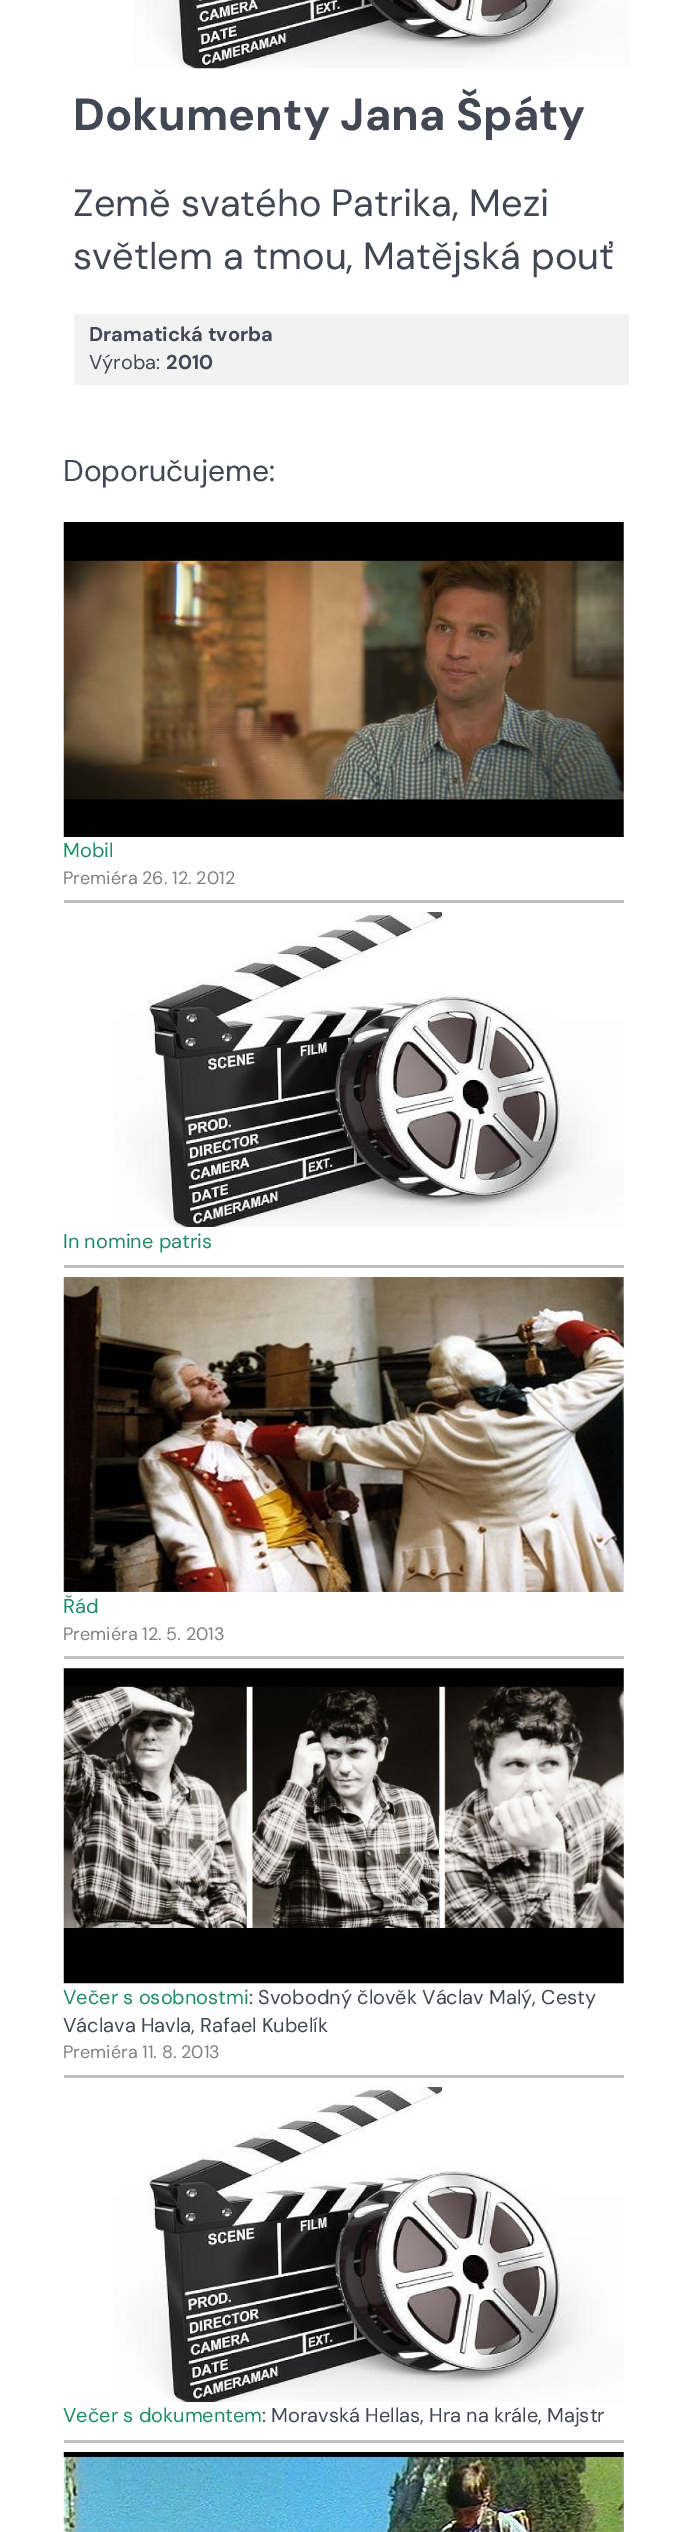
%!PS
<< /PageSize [686 2532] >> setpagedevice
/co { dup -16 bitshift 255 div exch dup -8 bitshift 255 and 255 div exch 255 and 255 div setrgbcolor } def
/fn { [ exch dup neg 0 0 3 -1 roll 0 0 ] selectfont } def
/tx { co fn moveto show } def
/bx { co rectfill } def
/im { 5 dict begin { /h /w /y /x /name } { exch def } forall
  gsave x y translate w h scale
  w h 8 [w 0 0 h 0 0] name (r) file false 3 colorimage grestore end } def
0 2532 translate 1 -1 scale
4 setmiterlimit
0 0 686 2532 16#FFFFFF bx
(media/1.raw) 134 0 495 69 im
74 314 555 71 16#F2F2F2 bx
64 900 560 3 16#C0C0C0 bx
(media/2.raw) 63 522 561 315 im
64 1265 560 3 16#C0C0C0 bx
(media/3.raw) 113 912 511 315 im
64 1656 560 3 16#C0C0C0 bx
(media/4.raw) 63 1277 561 315 im
64 2075 560 3 16#C0C0C0 bx
(media/5.raw) 63 1668 561 316 im
64 2440 560 3 16#C0C0C0 bx
(media/6.raw) 113 2087 511 315 im
(media/7.raw) 63 2452 561 80 im
(Dokumenty Jana Špáty) 73 130 /DMSans-Bold 45 16#424753 tx
(Země svatého Patrika, Mezi) 73 216 /DMSans-Regular 38 16#424753 tx
(světlem a tmou, Matějská pouť) 73 269 /DMSans-Regular 38 16#424753 tx
(Dramatická tvorba) 89 341 /DMSans-Bold 20 16#424753 tx
(Výroba:) 89 369 /DMSans-Regular 20 16#424753 tx
(2010) 166 369 /DMSans-Bold 20 16#424753 tx
(Doporučujeme:) 63 481 /DMSans-Regular 30 16#424753 tx
(Mobil) 63 857 /DMSans-Regular 20 16#1F8C68 tx
(Premiéra 26. 12. 2012) 63 884 /DMSans-Regular 18 16#808080 tx
(In nomine patris) 63 1248 /DMSans-Regular 20 16#1F8C68 tx
(Řád) 63 1613 /DMSans-Regular 20 16#1F8C68 tx
(Premiéra 12. 5. 2013) 63 1640 /DMSans-Regular 18 16#808080 tx
(Večer s osobnostmi) 63 2004 /DMSans-Regular 20 16#1F8C68 tx
(: Svobodný člověk Václav Malý, Cesty) 249 2004 /DMSans-Regular 20 16#424753 tx
(Václava Havla, Rafael Kubelík) 63 2032 /DMSans-Regular 20 16#424753 tx
(Premiéra 11. 8. 2013) 63 2058 /DMSans-Regular 18 16#808080 tx
(Večer s dokumentem) 63 2422 /DMSans-Regular 20 16#1F8C68 tx
(: Moravská Hellas, Hra na krále, Majstr) 262 2422 /DMSans-Regular 20 16#424753 tx
showpage
